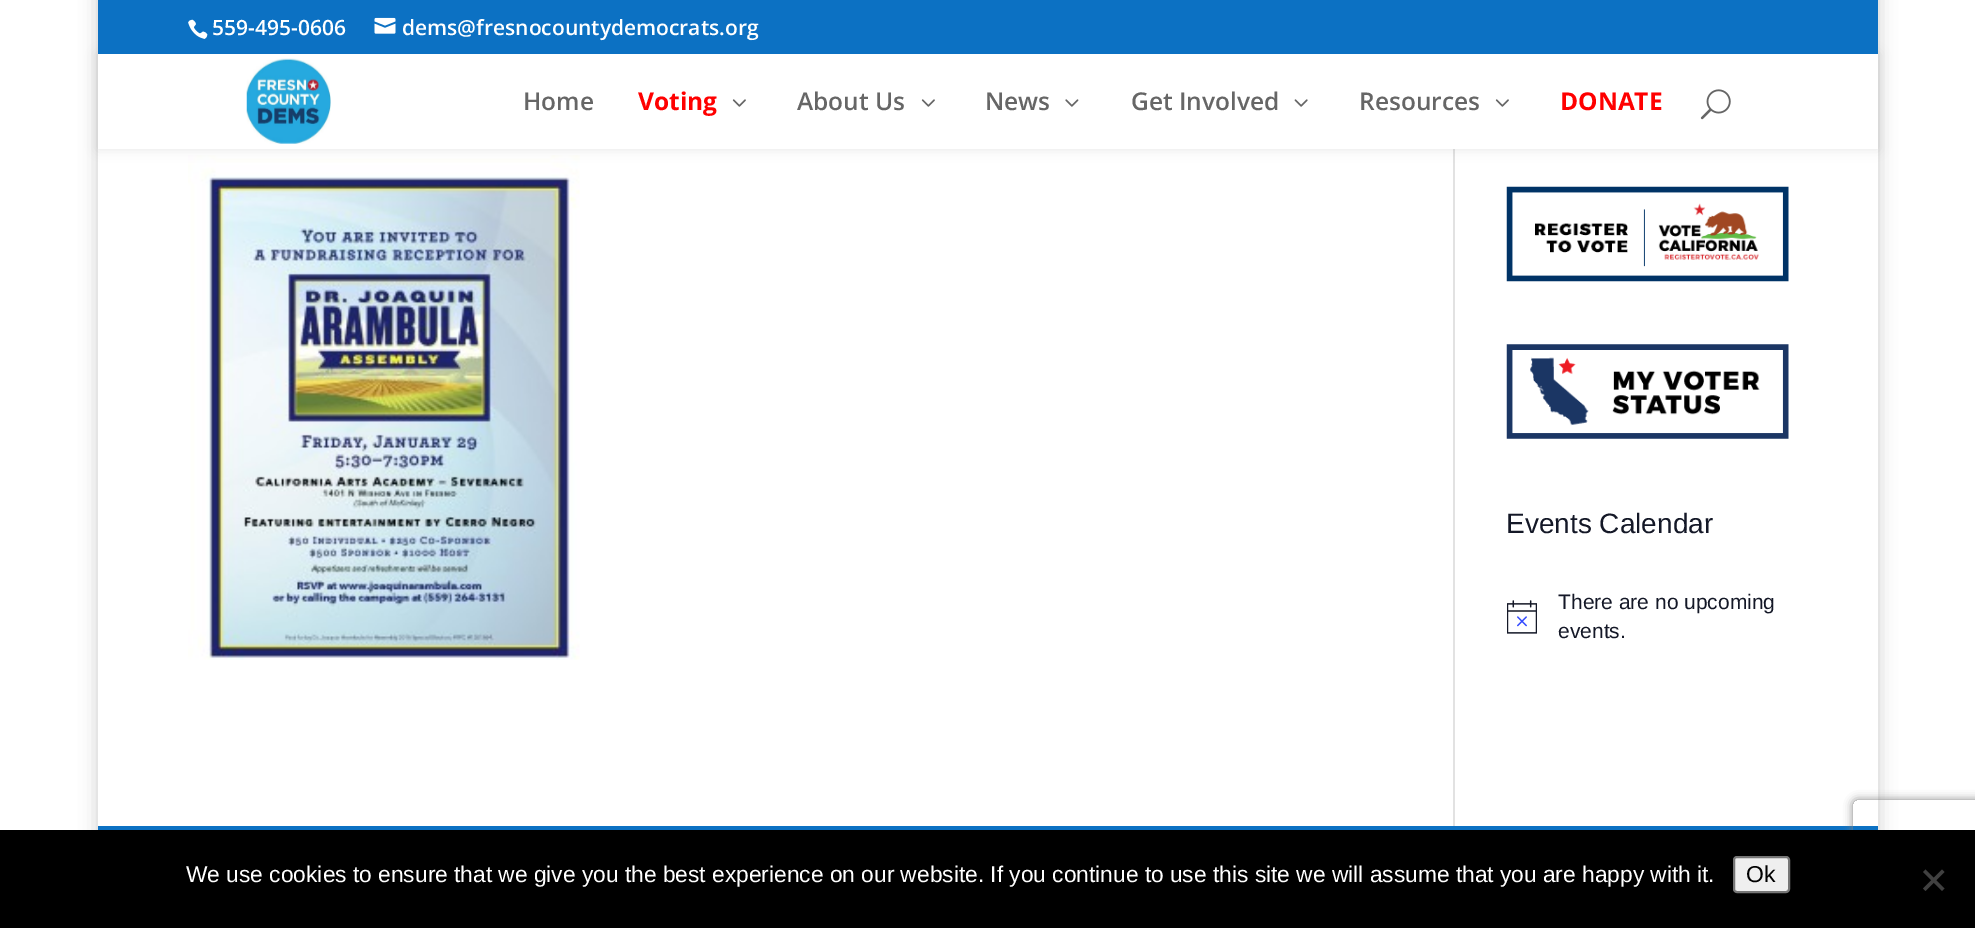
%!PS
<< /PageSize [1975 928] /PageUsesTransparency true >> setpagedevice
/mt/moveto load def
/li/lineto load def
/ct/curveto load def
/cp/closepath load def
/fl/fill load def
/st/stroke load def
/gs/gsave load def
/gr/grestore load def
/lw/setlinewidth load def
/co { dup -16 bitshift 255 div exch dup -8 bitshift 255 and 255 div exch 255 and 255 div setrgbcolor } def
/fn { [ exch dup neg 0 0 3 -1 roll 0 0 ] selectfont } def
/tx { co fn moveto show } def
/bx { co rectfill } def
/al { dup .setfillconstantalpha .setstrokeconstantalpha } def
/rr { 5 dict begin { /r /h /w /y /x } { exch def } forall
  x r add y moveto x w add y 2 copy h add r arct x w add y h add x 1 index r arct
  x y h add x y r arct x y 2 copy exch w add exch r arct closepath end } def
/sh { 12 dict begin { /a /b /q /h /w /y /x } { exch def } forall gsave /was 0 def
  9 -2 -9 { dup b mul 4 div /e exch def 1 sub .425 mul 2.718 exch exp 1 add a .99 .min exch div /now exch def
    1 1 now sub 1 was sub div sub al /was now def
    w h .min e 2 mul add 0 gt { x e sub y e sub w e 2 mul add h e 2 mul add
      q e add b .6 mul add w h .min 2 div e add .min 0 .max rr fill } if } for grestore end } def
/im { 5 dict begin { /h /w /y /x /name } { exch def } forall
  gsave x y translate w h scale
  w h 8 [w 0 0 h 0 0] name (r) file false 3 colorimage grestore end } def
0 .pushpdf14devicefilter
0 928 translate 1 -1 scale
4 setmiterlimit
0 0 1975 928 16#FFFFFF bx
16#000000 co
98 -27 1780 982 0 9 .2 sh
98 149 1780 677 16#FFFFFF bx
1453 149 2 677 16#E2E2E2 bx
(media/8.raw) 188 155 392 505 im
16#000000 co
98 54 1780 95 0 6 .1 sh
98 0 1780 54 16#0C71C3 bx
(media/1.raw) 188 19 20 20 im
(media/2.raw) 374 17 22 17 im
98 54 1780 95 16#FFFFFF bx
(media/3.raw) 246 58 85 86 im
(media/4.raw) 732 99 14 8 im
(media/4.raw) 921 99 14 8 im
(media/5.raw) 1065 99 14 8 im
(media/6.raw) 1294 99 14 8 im
(media/4.raw) 1495 99 14 8 im
(media/7.raw) 1700 89 31 31 im
(media/9.raw) 1506 186 283 96 im
(media/10.raw) 1506 344 283 95 im
(media/11.raw) 1507 600 30 34 im
98 826 1780 4 16#0C71C3 bx
gs
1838 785 mt 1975 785 li 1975 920 li 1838 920 li cp 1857 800 mt 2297 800 li 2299 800 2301 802 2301 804 ct 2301 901 li 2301 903 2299 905 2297 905 ct 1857 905 li 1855 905 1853 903 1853 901 ct 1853 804 li 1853 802 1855 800 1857 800 ct cp eoclip newpath
16#808080 co
1853 800 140 105 4 4.5 1 sh
gr
0 830 1975 98 16#000000 bx
16#EFEFEF co
1734 857 55 35 3 rr gs fl gr
16#767676 co
2 lw
st
16#404040 co
1942 869.5 mt 1944.5 872 li 1925.5 891 li 1923 888.5 li cp fl
1923 872 mt 1925.5 869.5 li 1944.5 888.5 li 1942 891 li cp fl
(559-495-0606) 212 35 /OpenSans-SemiBold 21 16#FFFFFF tx
(dems@fresnocountydemocrats.org) 402 35 /OpenSans-SemiBold 21 16#FFFFFF tx
(Home) 523 110 /OpenSans-SemiBold 24.5 16#666666 tx
(Voting) 638 110 /OpenSans-Bold 24.5 16#FF0000 tx
(About Us) 797 110 /OpenSans-SemiBold 24.5 16#666666 tx
(News) 985 110 /OpenSans-SemiBold 24.5 16#666666 tx
(Get Involved) 1131 110 /OpenSans-SemiBold 24.5 16#666666 tx
(Resources) 1359 110 /OpenSans-SemiBold 24.5 16#666666 tx
(DONATE) 1560 110 /OpenSans-Bold 24.5 16#FF0000 tx
(Events Calendar) 1506 533 /LiberationSans-Regular 28 16#141827 tx
(There are no upcoming) 1558 609 /LiberationSans-Regular 21 16#141827 tx
(events.) 1558 638 /LiberationSans-Regular 21 16#141827 tx
(We use cookies to ensure that we give you the best experience on our website. If you continue to use this site we will assume that you are happy with it.) 186 882 /LiberationSans-Regular 22.75 16#FFFFFF tx
(Ok) 1746 882 /LiberationSans-Regular 23 16#000000 tx
.poppdf14devicefilter showpage
